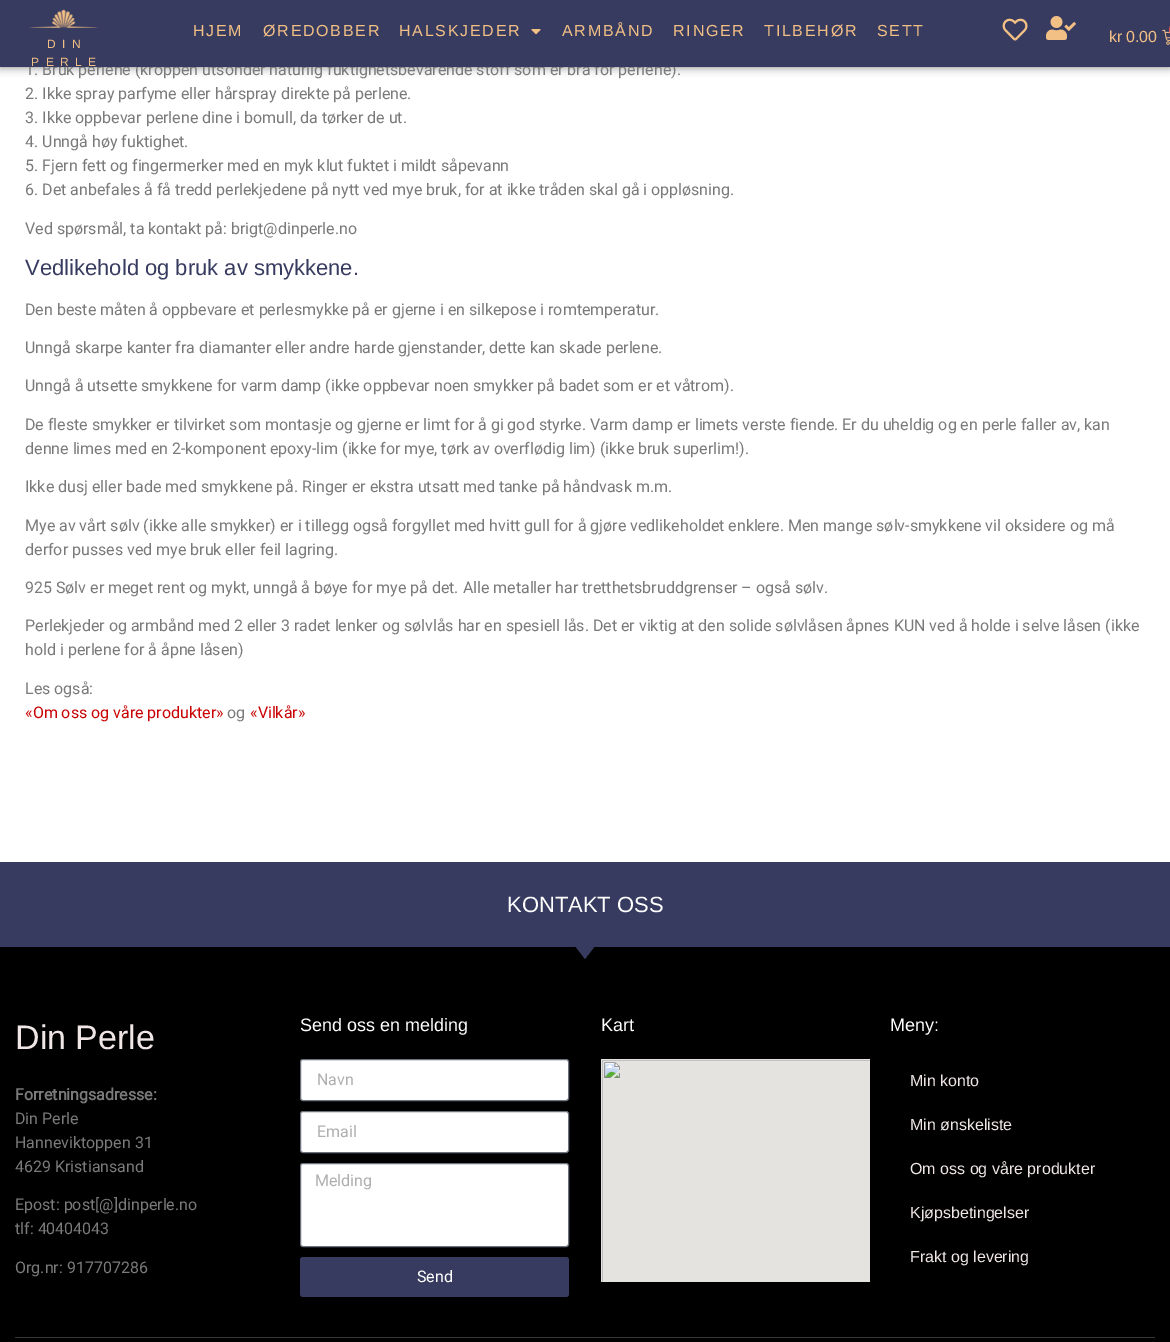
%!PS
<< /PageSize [1170 1342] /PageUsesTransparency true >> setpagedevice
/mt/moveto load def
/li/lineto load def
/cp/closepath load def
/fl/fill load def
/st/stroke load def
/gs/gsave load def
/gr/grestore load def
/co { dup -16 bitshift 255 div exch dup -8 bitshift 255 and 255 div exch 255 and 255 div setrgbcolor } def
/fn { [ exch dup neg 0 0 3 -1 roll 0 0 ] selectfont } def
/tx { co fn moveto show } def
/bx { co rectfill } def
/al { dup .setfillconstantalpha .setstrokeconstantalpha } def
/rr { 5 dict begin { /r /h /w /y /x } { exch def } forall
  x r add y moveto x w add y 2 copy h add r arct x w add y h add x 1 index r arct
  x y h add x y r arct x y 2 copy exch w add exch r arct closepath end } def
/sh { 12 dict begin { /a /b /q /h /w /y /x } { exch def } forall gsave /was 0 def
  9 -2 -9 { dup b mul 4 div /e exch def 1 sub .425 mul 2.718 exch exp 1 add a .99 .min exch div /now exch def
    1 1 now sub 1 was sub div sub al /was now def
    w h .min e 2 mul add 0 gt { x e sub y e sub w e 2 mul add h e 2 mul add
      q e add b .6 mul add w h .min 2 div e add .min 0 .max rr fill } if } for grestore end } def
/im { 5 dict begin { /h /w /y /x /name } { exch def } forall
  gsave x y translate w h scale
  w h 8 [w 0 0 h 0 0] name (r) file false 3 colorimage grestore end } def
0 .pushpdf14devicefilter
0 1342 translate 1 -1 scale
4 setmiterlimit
0 0 1170 1342 16#FFFFFF bx
16#000000 co
0 0 1170 67 0 4.5 .5 sh
0 862 1170 85 16#373B5F bx
0 947 1170 395 16#000000 bx
16#373B5F co
585 959 mt 575 946 li 595 946 li cp fl
16#FFFFFF co
300.5 1059.5 268 41 2.5 rr gs fl gr
16#69727D co
st
16#FFFFFF co
300.5 1111.5 268 41 2.5 rr gs fl gr
16#69727D co
st
16#FFFFFF co
300.5 1163.5 268 83 2.5 rr gs fl gr
16#69727D co
st
16#373B5F co
300 1257 269 40 3 rr fl
(media/6.raw) 601 1059 269 223 im
15 1337 1140 1 16#363636 bx
(1. Bruk perlene \(kroppen utsonder naturlig fuktighetsbevarende stoff som er bra for perlene\).) 25 75 /Roboto-Regular 16 16#7A7A7A tx
0 0 1170 67 16#373B5F bx
/LiberationSans-Regular 16 fn
16#F2BF85 co
877 36 mt 1.75 0 (SETT) ashow
764 36 mt 1.75 0 (TILBEHØR) ashow
673 36 mt 1.75 0 (RINGER) ashow
562 36 mt 1.75 0 (ARMBÅND) ashow
(media/1.raw) 531 29 10 6 im
399 36 mt 1.75 0 (HALSKJEDER) ashow
263 36 mt 1.75 0 (ØREDOBBER) ashow
193 36 mt 1.75 0 (HJEM) ashow
(media/4.raw) 1162 29 8 16 im
16#D9534F co
1169 22 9 16 8 rr fl
(0.00) 1126 42 /LiberationSans-Regular 16 16#F2BF85 tx
(kr) 1109 42 /LiberationSans-Regular 16 16#F2BF85 tx
(media/3.raw) 1046 16 30 24 im
(media/2.raw) 1002 18 26 23 im
/LiberationSans-Regular 12 fn
31 66 mt 6.5 0 (PERLE) ashow
47 48 mt 6.5 0 (DIN) ashow
(media/5.raw) 29 9 69 19 im
(2. Ikke spray parfyme eller hårspray direkte på perlene.) 25 99 /Roboto-Regular 16 16#7A7A7A tx
(3. Ikke oppbevar perlene dine i bomull, da tørker de ut.) 25 123 /Roboto-Regular 16 16#7A7A7A tx
(4. Unngå høy fuktighet.) 25 147 /Roboto-Regular 16 16#7A7A7A tx
(5. Fjern fett og fingermerker med en myk klut fuktet i mildt såpevann) 25 171 /Roboto-Regular 16 16#7A7A7A tx
(6. Det anbefales å få tredd perlekjedene på nytt ved mye bruk, for at ikke tråden skal gå i oppløsning.) 25 195 /Roboto-Regular 16 16#7A7A7A tx
(Ved spørsmål, ta kontakt på: brigt@dinperle.no) 25 234 /Roboto-Regular 16 16#7A7A7A tx
(Vedlikehold og bruk av smykkene.) 25 275 /LiberationSans-Regular 22 16#373B5F tx
(Den beste måten å oppbevare et perlesmykke på er gjerne i en silkepose i romtemperatur.) 25 315 /Roboto-Regular 16 16#7A7A7A tx
(Unngå skarpe kanter fra diamanter eller andre harde gjenstander, dette kan skade perlene.) 25 353 /Roboto-Regular 16 16#7A7A7A tx
(Unngå å utsette smykkene for varm damp \(ikke oppbevar noen smykker på badet som er et våtrom\).) 25 391 /Roboto-Regular 16 16#7A7A7A tx
(De fleste smykker er tilvirket som montasje og gjerne er limt for å gi god styrke. Varm damp er limets verste fiende. Er du uheldig og en perle faller av, kan) 25 430 /Roboto-Regular 16 16#7A7A7A tx
(denne limes med en 2-komponent epoxy-lim \(ikke for mye, tørk av overflødig lim\) \(ikke bruk superlim!\).) 25 454 /Roboto-Regular 16 16#7A7A7A tx
(Ikke dusj eller bade med smykkene på. Ringer er ekstra utsatt med tanke på håndvask m.m.) 25 492 /Roboto-Regular 16 16#7A7A7A tx
(Mye av vårt sølv \(ikke alle smykker\) er i tillegg også forgyllet med hvitt gull for å gjøre vedlikeholdet enklere. Men mange sølv-smykkene vil oksidere og må) 25 531 /Roboto-Regular 16 16#7A7A7A tx
(derfor pusses ved mye bruk eller feil lagring.) 25 555 /Roboto-Regular 16 16#7A7A7A tx
(925 Sølv er meget rent og mykt, unngå å bøye for mye på det. Alle metaller har tretthetsbruddgrenser – også sølv.) 25 593 /Roboto-Regular 16 16#7A7A7A tx
(Perlekjeder og armbånd med 2 eller 3 radet lenker og sølvlås har en spesiell lås. Det er viktig at den solide sølvlåsen åpnes KUN ved å holde i selve låsen \(ikke) 25 631 /Roboto-Regular 16 16#7A7A7A tx
(hold i perlene for å åpne låsen\)) 25 655 /Roboto-Regular 16 16#7A7A7A tx
(Les også:) 25 694 /Roboto-Regular 16 16#7A7A7A tx
(«Om oss og våre produkter») 25 718 /Roboto-Regular 16 16#C90203 tx
(og) 227 718 /Roboto-Regular 16 16#7A7A7A tx
(«Vilkår») 250 718 /Roboto-Regular 16 16#C90203 tx
(KONTAKT OSS) 507 912 /LiberationSans-Regular 22 16#FFFFFF tx
(Din Perle) 15 1049 /LiberationSans-Regular 34 16#F0E6E6 tx
(Forretningsadresse:) 15 1100 /Roboto-Bold 16 16#7A7A7A tx
(Din Perle) 15 1124 /Roboto-Regular 16 16#7A7A7A tx
(Hanneviktoppen 31) 15 1148 /Roboto-Regular 16 16#7A7A7A tx
(4629 Kristiansand) 15 1172 /Roboto-Regular 16 16#7A7A7A tx
(Epost: post[@]dinperle.no) 15 1210 /Roboto-Regular 16 16#7A7A7A tx
(tlf: 40404043) 15 1234 /Roboto-Regular 16 16#7A7A7A tx
(Org.nr: 917707286) 15 1273 /Roboto-Regular 16 16#7A7A7A tx
(Send oss en melding) 300 1031 /LiberationSans-Regular 18 16#FFFFFF tx
(Navn) 317 1085 /Roboto-Regular 16 16#AFAFAF tx
(Email) 317 1137 /Roboto-Regular 16 16#AFAFAF tx
(Melding) 315 1186 /Roboto-Regular 16 16#AFAFAF tx
(Send) 417 1282 /Roboto-Regular 16 16#FFFFFF tx
(Kart) 601 1031 /LiberationSans-Regular 18 16#FFFFFF tx
(Meny:) 890 1031 /LiberationSans-Regular 18 16#FFFFFF tx
(Min konto) 910 1086 /LiberationSans-Regular 16 16#F0E6E6 tx
(Min ønskeliste) 910 1130 /LiberationSans-Regular 16 16#F0E6E6 tx
(Om oss og våre produkter) 910 1174 /LiberationSans-Regular 16 16#F0E6E6 tx
(Kjøpsbetingelser) 910 1218 /LiberationSans-Regular 16 16#F0E6E6 tx
(Frakt og levering) 910 1262 /LiberationSans-Regular 16 16#F0E6E6 tx
.poppdf14devicefilter showpage
